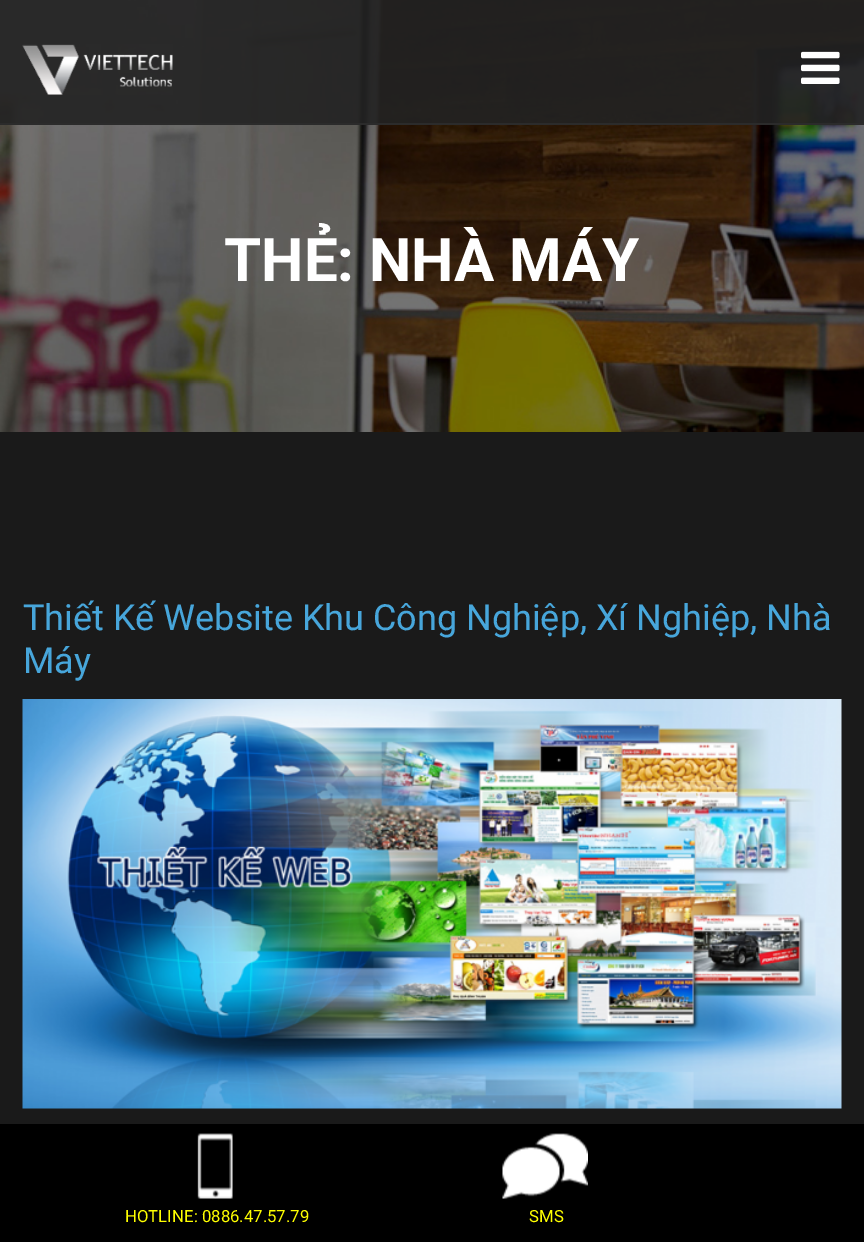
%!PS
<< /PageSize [864 1242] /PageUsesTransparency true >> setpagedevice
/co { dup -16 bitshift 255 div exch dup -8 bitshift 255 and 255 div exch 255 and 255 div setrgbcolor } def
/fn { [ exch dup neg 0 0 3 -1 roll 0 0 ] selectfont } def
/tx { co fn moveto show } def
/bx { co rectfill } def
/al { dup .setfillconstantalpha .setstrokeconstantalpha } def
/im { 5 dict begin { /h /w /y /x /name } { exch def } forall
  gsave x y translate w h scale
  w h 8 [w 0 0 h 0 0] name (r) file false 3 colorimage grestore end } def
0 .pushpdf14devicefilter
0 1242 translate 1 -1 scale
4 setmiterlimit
0 0 864 1242 16#1A1A1A bx
(media/3.raw) 0 0 864 432 im
0.9 al
0 0 864 123 16#222222 bx
1 al
0 123 864 2 16#2B2B2B bx
(media/1.raw) 22 44 151 51 im
(media/2.raw) 801 51 39 33 im
(media/4.raw) 22 699 820 410 im
0 1124 864 118 16#000000 bx
(media/5.raw) 197 1133 36 66 im
(media/6.raw) 502 1133 86 66 im
(THẺ: NHÀ MÁY) 224 281 /Roboto-Bold 60 16#FFFFFF tx
(Thiết Kế Website Khu Công Nghiệp, Xí Nghiệp, Nhà) 23 630 /Roboto-Regular 36 16#47A6DB tx
(Máy) 23 673 /Roboto-Regular 36 16#47A6DB tx
(HOTLINE: 0886.47.57.79) 125 1222 /Roboto-Regular 16.75 16#FFFF00 tx
(SMS) 529 1222 /Roboto-Regular 16.75 16#FFFF00 tx
.poppdf14devicefilter showpage
